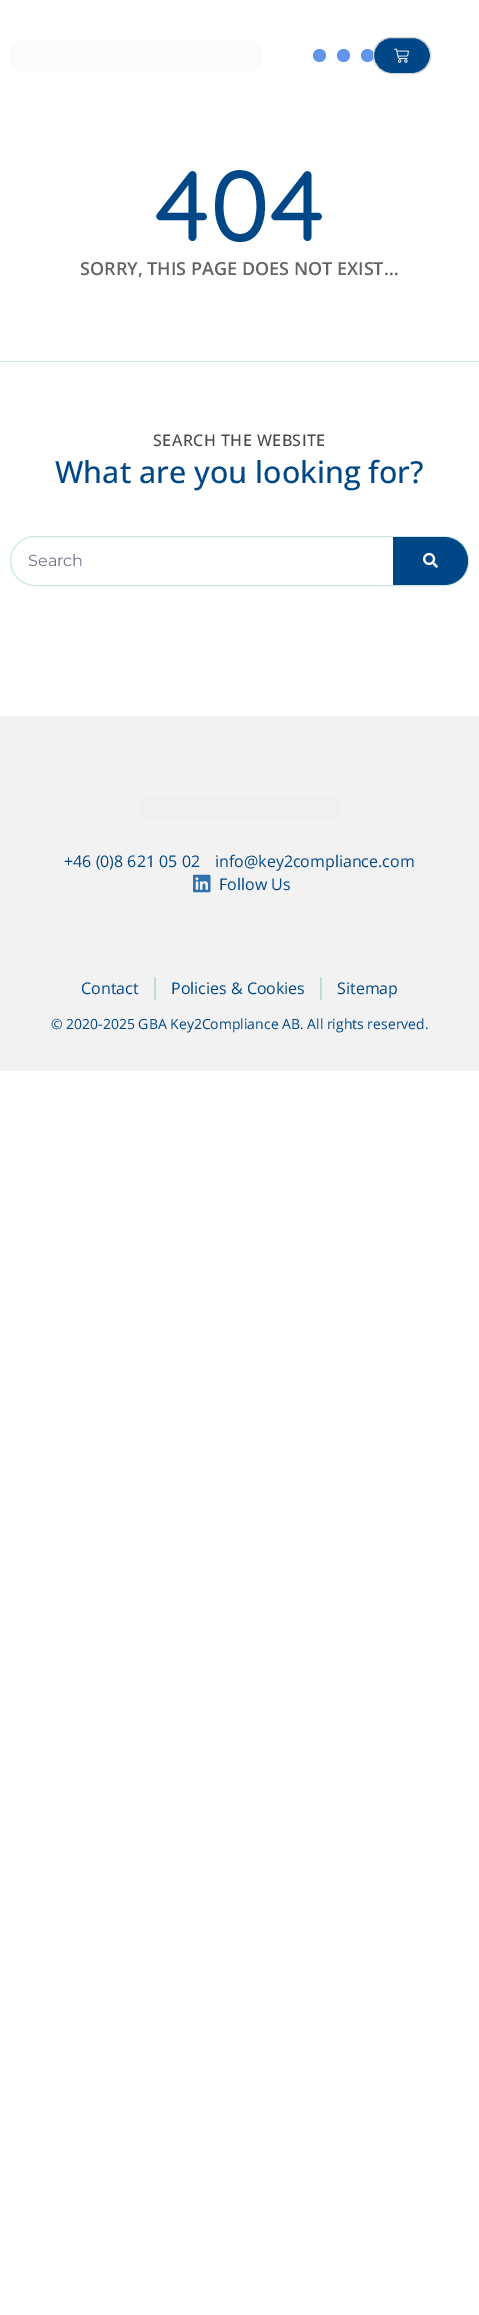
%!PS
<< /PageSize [479 2315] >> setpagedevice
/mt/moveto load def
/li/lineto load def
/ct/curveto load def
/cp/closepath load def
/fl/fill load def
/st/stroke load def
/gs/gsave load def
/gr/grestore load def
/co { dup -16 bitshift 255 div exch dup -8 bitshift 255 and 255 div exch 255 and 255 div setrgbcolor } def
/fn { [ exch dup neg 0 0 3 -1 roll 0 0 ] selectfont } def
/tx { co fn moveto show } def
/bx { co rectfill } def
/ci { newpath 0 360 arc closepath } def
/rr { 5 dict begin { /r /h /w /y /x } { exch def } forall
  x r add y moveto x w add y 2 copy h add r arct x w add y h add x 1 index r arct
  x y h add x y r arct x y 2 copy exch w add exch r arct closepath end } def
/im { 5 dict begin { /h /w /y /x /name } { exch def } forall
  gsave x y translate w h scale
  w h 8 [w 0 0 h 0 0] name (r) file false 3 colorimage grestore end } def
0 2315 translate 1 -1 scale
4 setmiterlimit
0 0 479 2315 16#FFFFFF bx
16#FAFBFB co
10 41 252 30 10 rr fl
16#6495ED co
319.5 55.5 6.5 ci fl
343.5 55.5 6.5 ci fl
367.5 55.5 6.5 ci fl
16#004787 co
373.5 37.5 57 36 18 rr gs fl gr
16#D7D7D7 co
st
(media/1.raw) 394 48 15 15 im
0 361 479 1 16#CDE5E6 bx
10.5 536.5 458 49 24.5 rr st
16#004787 co
393 537 mt 444 537 li 457.5 537 468 547.5 468 561 ct 468 574.5 457.5 585 444 585 ct 393 585 li cp fl
(media/2.raw) 423 552 15 16 im
0 716 479 355 16#F2F2F2 bx
16#EEEFF0 co
140 798 200 20 10 rr fl
(media/3.raw) 193 874 18 19 im
154 977 2 23 16#C3DADC bx
320 977 2 23 16#C3DADC bx
(404) 155 241 /Quicksand-Medium 100 16#004787 tx
(SORRY, THIS PAGE DOES NOT EXIST…) 80 275 /OpenSans-SemiBold 18 16#636363 tx
/OpenSans-Medium 16 fn
16#4A4A4A co
153 446 mt .5 0 (SEARCH THE WEBSITE) ashow
(What are you looking for?) 55 483 /OpenSans-Medium 30.4 16#004787 tx
(Search) 28 566 /Montserrat-Regular 16 16#73738C tx
(+46 \(0\)8 621 05 02) 64 867 /OpenSans-Regular 16 16#004787 tx
(info@key2compliance.com) 215 867 /OpenSans-Regular 16 16#004787 tx
(Follow Us) 219 890 /OpenSans-Regular 16 16#004787 tx
(Contact) 81 994 /OpenSans-Regular 16 16#004787 tx
(Policies & Cookies) 171 994 /OpenSans-Regular 16 16#004787 tx
(Sitemap) 337 994 /OpenSans-Regular 16 16#004787 tx
(© 2020-2025 GBA Key2Compliance AB. All rights reserved.) 51 1029 /OpenSans-Regular 14 16#004787 tx
showpage
